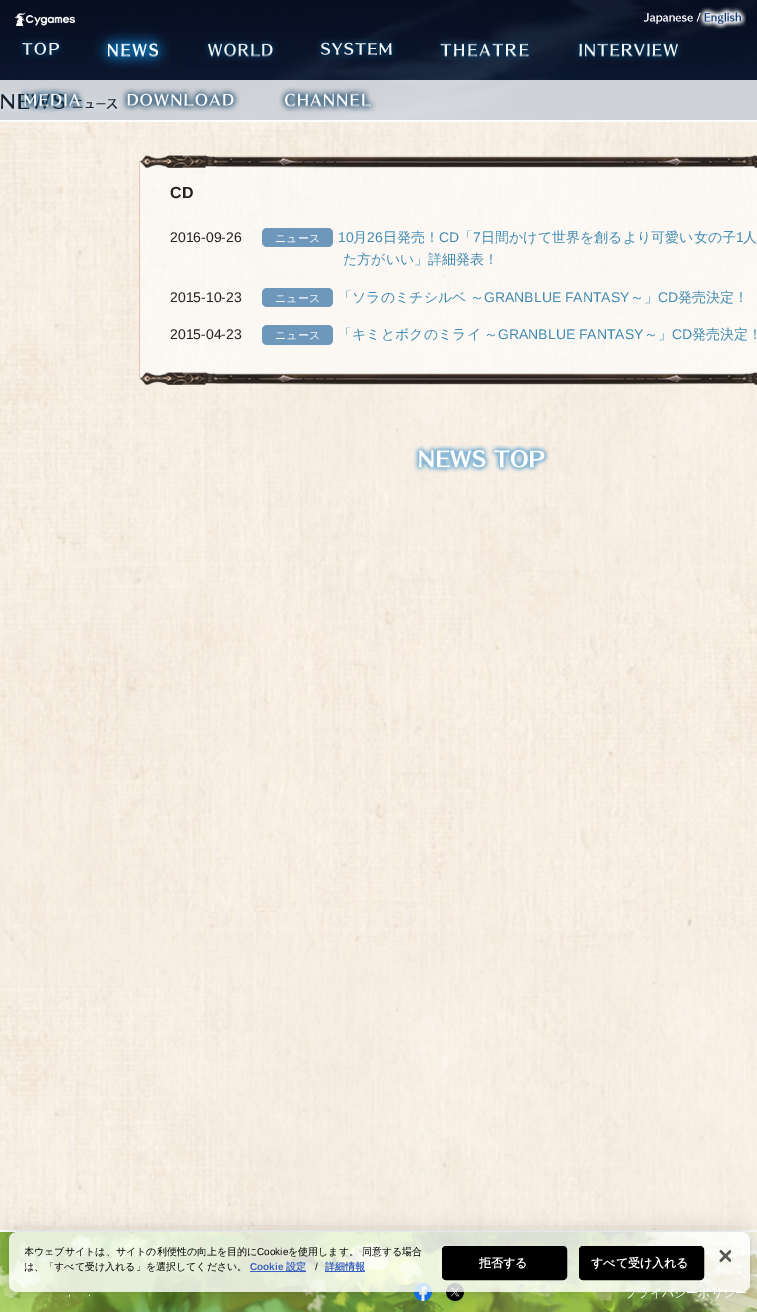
%!PS
<< /PageSize [757 1312] /PageUsesTransparency true >> setpagedevice
/mt/moveto load def
/li/lineto load def
/ct/curveto load def
/cp/closepath load def
/fl/fill load def
/st/stroke load def
/gs/gsave load def
/gr/grestore load def
/co { dup -16 bitshift 255 div exch dup -8 bitshift 255 and 255 div exch 255 and 255 div setrgbcolor } def
/fn { [ exch dup neg 0 0 3 -1 roll 0 0 ] selectfont } def
/tx { co fn moveto show } def
/bx { co rectfill } def
/al { dup .setfillconstantalpha .setstrokeconstantalpha } def
/rr { 5 dict begin { /r /h /w /y /x } { exch def } forall
  x r add y moveto x w add y 2 copy h add r arct x w add y h add x 1 index r arct
  x y h add x y r arct x y 2 copy exch w add exch r arct closepath end } def
/sh { 12 dict begin { /a /b /q /h /w /y /x } { exch def } forall gsave /was 0 def
  9 -2 -9 { dup b mul 4 div /e exch def 1 sub .425 mul 2.718 exch exp 1 add a .99 .min exch div /now exch def
    1 1 now sub 1 was sub div sub al /was now def
    w h .min e 2 mul add 0 gt { x e sub y e sub w e 2 mul add h e 2 mul add
      q e add b .6 mul add w h .min 2 div e add .min 0 .max rr fill } if } for grestore end } def
/im { 5 dict begin { /h /w /y /x /name } { exch def } forall
  gsave x y translate w h scale
  w h 8 [w 0 0 h 0 0] name (r) file false 3 colorimage grestore end } def
0 .pushpdf14devicefilter
0 1312 translate 1 -1 scale
4 setmiterlimit
0 0 757 1312 16#FFFFFF bx
(media/1.raw) 0 0 757 1312 im
(media/2.raw) 15 12 60 14 im
(media/3.raw) 19 38 45 21 im
(media/5.raw) 103 39 60 22 im
(media/4.raw) 94 30 76 39 im
(media/6.raw) 204 39 73 22 im
(media/7.raw) 317 38 80 22 im
(media/8.raw) 437 39 95 22 im
(media/9.raw) 574 38 108 23 im
0.8 al
0 80 757 40 16#FFFFFF bx
1 al
(media/16.raw) 0 90 119 23 im
(media/10.raw) 18 87 67 26 im
(media/11.raw) 121 88 119 24 im
(media/12.raw) 279 87 97 26 im
(media/13.raw) 642 12 60 14 im
(media/14.raw) 699 7 47 23 im
(media/15.raw) 0 120 757 1110 im
0 1230 757 2 16#FFFFFF bx
16#DFCBB7 co
139.5 161.5 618 217 rectstroke
0.6 al
140 162 617 216 16#FFFFFF bx
1 al
(media/17.raw) 140 155 617 13 im
16#6D97BB co
262 228 71 19 5 rr fl
262 288 71 19 5 rr fl
262 325 71 20 5 rr fl
(media/18.raw) 140 372 617 13 im
(media/19.raw) 413 445 137 28 im
(media/21.raw) 414 1283 18 18 im
(media/22.raw) 446 1283 18 18 im
gs
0 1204 mt 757 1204 li 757 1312 li 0 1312 li cp 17 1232 mt 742 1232 li 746.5 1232 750 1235.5 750 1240 ct 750 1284 li 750 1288.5 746.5 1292 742 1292 ct 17 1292 li 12.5 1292 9 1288.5 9 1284 ct 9 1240 li 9 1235.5 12.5 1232 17 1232 ct cp eoclip newpath
16#000000 co
9 1232 741 60 8 9 .2 sh
gr
(CD) 170 198 /LiberationSans-Bold 16 16#222222 tx
(2016-09-26) 170 242 /LiberationSans-Regular 14 16#222222 tx
(ニュース) 275 242 /WenQuanYiZenHei-Medium 11 16#FFFFFF tx
(10) 338 242 /LiberationSans-Regular 14 16#418BB2 tx
(月) 353 242 /WenQuanYiZenHei-Medium 14 16#418BB2 tx
(26) 367 242 /LiberationSans-Regular 14 16#418BB2 tx
(日発売！) 383 242 /WenQuanYiZenHei-Medium 14 16#418BB2 tx
(CD) 439 242 /LiberationSans-Regular 14 16#418BB2 tx
(「) 459 242 /WenQuanYiZenHei-Medium 14 16#418BB2 tx
(7) 473 242 /LiberationSans-Regular 14 16#418BB2 tx
(日間かけて世界を創るより可愛い女の子) 481 242 /WenQuanYiZenHei-Medium 14 16#418BB2 tx
(1) 736 242 /LiberationSans-Regular 14 16#418BB2 tx
(人) 743 242 /WenQuanYiZenHei-Medium 14 16#418BB2 tx
(た方がいい」詳細発表！) 343 264 /WenQuanYiZenHei-Medium 14 16#418BB2 tx
(2015-10-23) 170 302 /LiberationSans-Regular 14 16#222222 tx
(ニュース) 275 302 /WenQuanYiZenHei-Medium 11 16#FFFFFF tx
(「ソラのミチシルベ) 338 302 /WenQuanYiZenHei-Medium 14 16#418BB2 tx
(～) 470 302 /WenQuanYiZenHei-Medium 14 16#418BB2 tx
(GRANBLUE FANTASY) 484 302 /LiberationSans-Regular 14 16#418BB2 tx
(～」) 630 302 /WenQuanYiZenHei-Medium 14 16#418BB2 tx
(CD) 658 302 /LiberationSans-Regular 14 16#418BB2 tx
(発売決定！) 678 302 /WenQuanYiZenHei-Medium 14 16#418BB2 tx
(2015-04-23) 170 339 /LiberationSans-Regular 14 16#222222 tx
(ニュース) 275 339 /WenQuanYiZenHei-Medium 11 16#FFFFFF tx
(「キミとボクのミライ) 338 339 /WenQuanYiZenHei-Medium 14 16#418BB2 tx
(～) 484 339 /WenQuanYiZenHei-Medium 14 16#418BB2 tx
(GRANBLUE FANTASY) 498 339 /LiberationSans-Regular 14 16#418BB2 tx
(～」) 644 339 /WenQuanYiZenHei-Medium 14 16#418BB2 tx
(CD) 672 339 /LiberationSans-Regular 14 16#418BB2 tx
(発売決定！) 692 339 /WenQuanYiZenHei-Medium 14 16#418BB2 tx
(,) 68 1296 /LiberationSans-Regular 11 16#FFFFFF tx
(.) 88 1296 /LiberationSans-Regular 11 16#FFFFFF tx
(プライバシーポリシー) 625 1297 /WenQuanYiZenHei-Medium 12 16#FFFFFF tx
0.8 al
9 1232 741 60 8 rr fl
1 al
(media/20.raw) 719 1250 12 12 im
16#000000 co
579.5 1246.5 124 33 3.5 rr gs fl gr
st
(すべて受け入れる) 591 1267 /WenQuanYiZenHei-Bold 12 16#FFFFFF tx
16#000000 co
442.5 1246.5 124 33 3.5 rr gs fl gr
st
(拒否する) 479 1267 /WenQuanYiZenHei-Bold 12 16#FFFFFF tx
325 1271 40 1 16#3860BE bx
(詳細情報) 325 1270 /WenQuanYiZenHei-Bold 10 16#3860BE tx
(/) 315 1270 /LiberationSans-Regular 10 16#000000 tx
250 1271 56 1 16#3860BE bx
(設定) 286 1270 /WenQuanYiZenHei-Bold 10 16#3860BE tx
(Cookie) 250 1270 /LiberationSans-Bold 10 16#3860BE tx
gs
25 1244 401 30 rectclip
(は、「すべて受け入れる」を選択してください。) 24 1270 /WenQuanYiZenHei-Medium 10 16#000000 tx
gr
(を使用します。 同意する場合) 288 1255 /WenQuanYiZenHei-Medium 10 16#000000 tx
(Cookie) 257 1255 /LiberationSans-Regular 10 16#000000 tx
gs
25 1244 401 30 rectclip
(本ウェブサイトは、サイトの利便性の向上を目的に) 24 1255 /WenQuanYiZenHei-Medium 10 16#000000 tx
gr
.poppdf14devicefilter showpage
